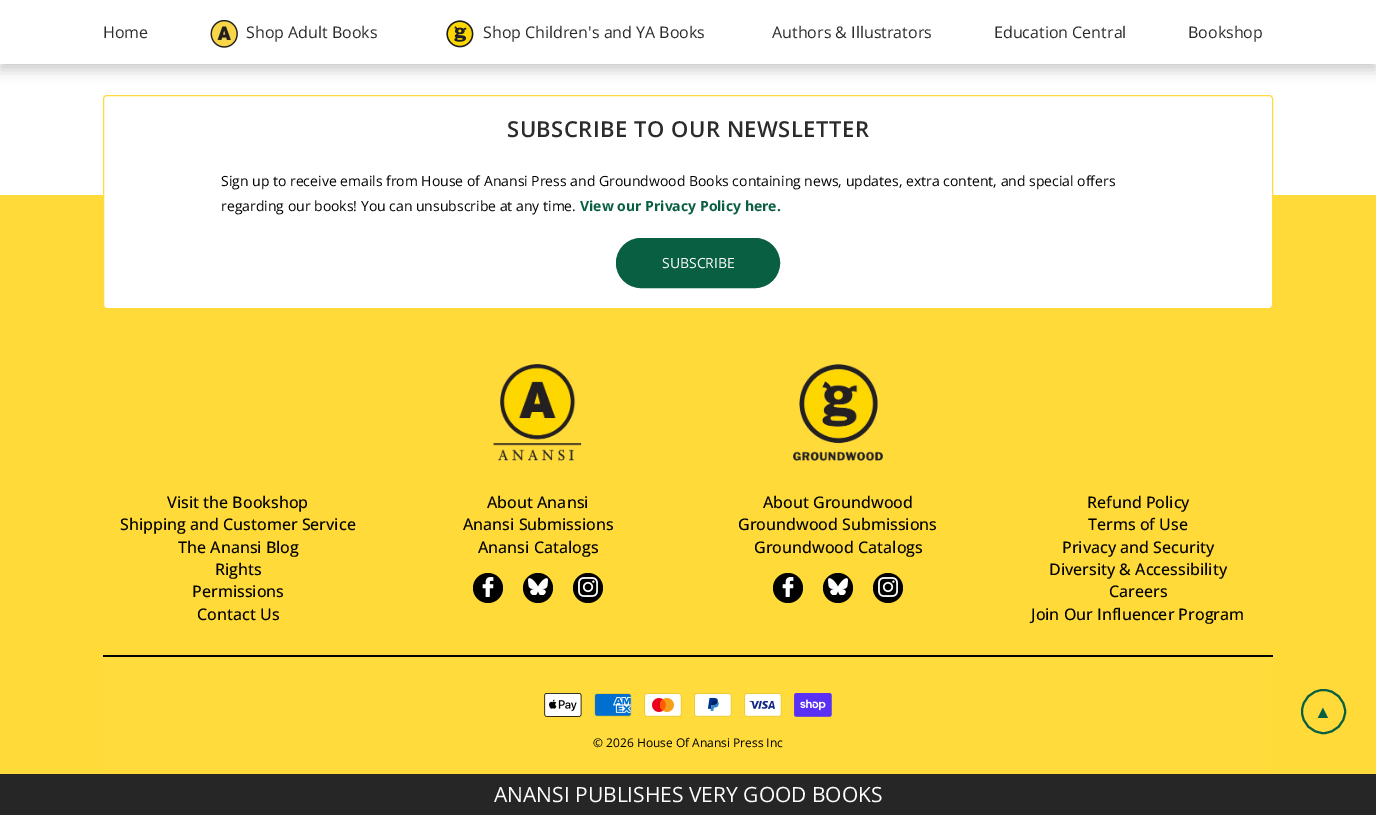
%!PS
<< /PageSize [1376 815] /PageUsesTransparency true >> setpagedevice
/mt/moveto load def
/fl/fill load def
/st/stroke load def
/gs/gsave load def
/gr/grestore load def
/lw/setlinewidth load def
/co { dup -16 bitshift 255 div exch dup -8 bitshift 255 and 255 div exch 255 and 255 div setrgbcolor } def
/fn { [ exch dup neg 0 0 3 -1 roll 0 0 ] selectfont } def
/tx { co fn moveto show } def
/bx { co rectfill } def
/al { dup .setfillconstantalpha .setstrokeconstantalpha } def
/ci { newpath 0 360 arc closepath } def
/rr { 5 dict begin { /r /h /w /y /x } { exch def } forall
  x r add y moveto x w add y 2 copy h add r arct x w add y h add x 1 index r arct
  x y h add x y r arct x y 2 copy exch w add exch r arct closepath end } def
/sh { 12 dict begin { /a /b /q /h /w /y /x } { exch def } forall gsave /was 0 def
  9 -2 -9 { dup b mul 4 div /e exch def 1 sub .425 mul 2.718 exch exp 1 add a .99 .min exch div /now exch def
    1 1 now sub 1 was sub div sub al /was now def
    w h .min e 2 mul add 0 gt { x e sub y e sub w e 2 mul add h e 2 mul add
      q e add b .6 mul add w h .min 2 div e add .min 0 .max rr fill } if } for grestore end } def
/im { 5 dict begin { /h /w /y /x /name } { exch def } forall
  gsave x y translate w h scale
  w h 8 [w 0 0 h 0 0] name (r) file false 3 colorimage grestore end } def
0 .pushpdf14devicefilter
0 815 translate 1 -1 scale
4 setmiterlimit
0 0 1376 815 16#FFFFFF bx
16#000000 co
0 6 1376 64 0 6.5 .2 sh
0 0 1376 64 16#FFFFFF bx
(media/1.raw) 210 20 28 28 im
(media/2.raw) 446 20 28 28 im
0 195 1376 579 16#FFDA38 bx
16#FFFFFF co
103.5 95.5 1169 213 3.5 rr gs fl gr
16#FFDB3B co
st
16#085F42 co
616.5 238.5 163 49 24.5 rr gs fl gr
st
(media/3.raw) 493 364 89 97 im
(media/4.raw) 793 364 90 97 im
16#000000 co
488 588 15 ci fl
(media/5.raw) 482 577 12 20 im
538 588 15 ci fl
(media/6.raw) 528 578 20 17 im
588 588 15 ci fl
(media/7.raw) 578 577 20 20 im
788 588 15 ci fl
(media/5.raw) 782 577 12 20 im
838 588 15 ci fl
(media/6.raw) 828 578 20 17 im
888 588 15 ci fl
(media/7.raw) 878 577 20 20 im
103 657 1170 113 16#FFDB3B bx
103 655 1170 2 16#000000 bx
(media/8.raw) 544 693 38 24 im
(media/9.raw) 594 693 38 24 im
(media/10.raw) 644 693 38 24 im
(media/11.raw) 694 693 38 24 im
(media/12.raw) 744 693 38 24 im
(media/13.raw) 794 693 38 24 im
0 774 1376 41 16#262626 bx
16#085F42 co
2 lw
1323.5 711.5 21.5 ci st
(Home) 103 38 /OpenSans-Regular 16 16#2B2B2B tx
(Shop Adult Books) 246 38 /OpenSans-Regular 16 16#2B2B2B tx
(Shop Children's and YA Books) 483 38 /OpenSans-Regular 16 16#2B2B2B tx
(Authors & Illustrators) 772 38 /OpenSans-Regular 16 16#2B2B2B tx
(Education Central) 994 38 /OpenSans-Regular 16 16#2B2B2B tx
(Bookshop) 1188 38 /OpenSans-Regular 16 16#2B2B2B tx
/OpenSans-SemiBold 22 fn
507 137 mt .5 0 (SUBSCRIBE TO OUR NEWSLETTER) ashow
(Sign up to receive emails from House of Anansi Press and Groundwood Books containing news, updates, extra content, and special offers) 221 186 /OpenSans-Regular 14 16#000000 tx
(regarding our books! You can unsubscribe at any time.) 221 211 /OpenSans-Regular 14 16#000000 tx
(View our Privacy Policy here.) 580 211 /OpenSans-Bold 14 16#085F42 tx
(SUBSCRIBE) 662 268 /OpenSans-Regular 14 16#FFFFFF tx
(Visit the Bookshop) 167 508 /OpenSans-Medium 16 16#000000 tx
(Shipping and Customer Service) 120 530 /OpenSans-Medium 16 16#000000 tx
(The Anansi Blog) 178 553 /OpenSans-Medium 16 16#000000 tx
(Rights) 215 575 /OpenSans-Medium 16 16#000000 tx
(Permissions) 192 597 /OpenSans-Medium 16 16#000000 tx
(Contact Us) 197 620 /OpenSans-Medium 16 16#000000 tx
(About Anansi) 487 508 /OpenSans-Medium 16 16#000000 tx
(Anansi Submissions) 463 530 /OpenSans-Medium 16 16#000000 tx
(Anansi Catalogs) 478 553 /OpenSans-Medium 16 16#000000 tx
(About Groundwood) 763 508 /OpenSans-Medium 16 16#000000 tx
(Groundwood Submissions) 738 530 /OpenSans-Medium 16 16#000000 tx
(Groundwood Catalogs) 754 553 /OpenSans-Medium 16 16#000000 tx
(Refund Policy) 1087 508 /OpenSans-Medium 16 16#000000 tx
(Terms of Use) 1088 530 /OpenSans-Medium 16 16#000000 tx
(Privacy and Security) 1062 553 /OpenSans-Medium 16 16#000000 tx
(Diversity & Accessibility) 1049 575 /OpenSans-Medium 16 16#000000 tx
(Careers) 1109 597 /OpenSans-Medium 16 16#000000 tx
(Join Our Influencer Program) 1031 620 /OpenSans-Medium 16 16#000000 tx
(© 2026 House Of Anansi Press Inc) 593 747 /OpenSans-Regular 12 16#000000 tx
(ANANSI PUBLISHES VERY GOOD BOOKS) 494 802 /OpenSans-Regular 21 16#FFFFFF tx
(▲) 1314 718 /LiberationSans-Regular 18 16#085F42 tx
.poppdf14devicefilter showpage
